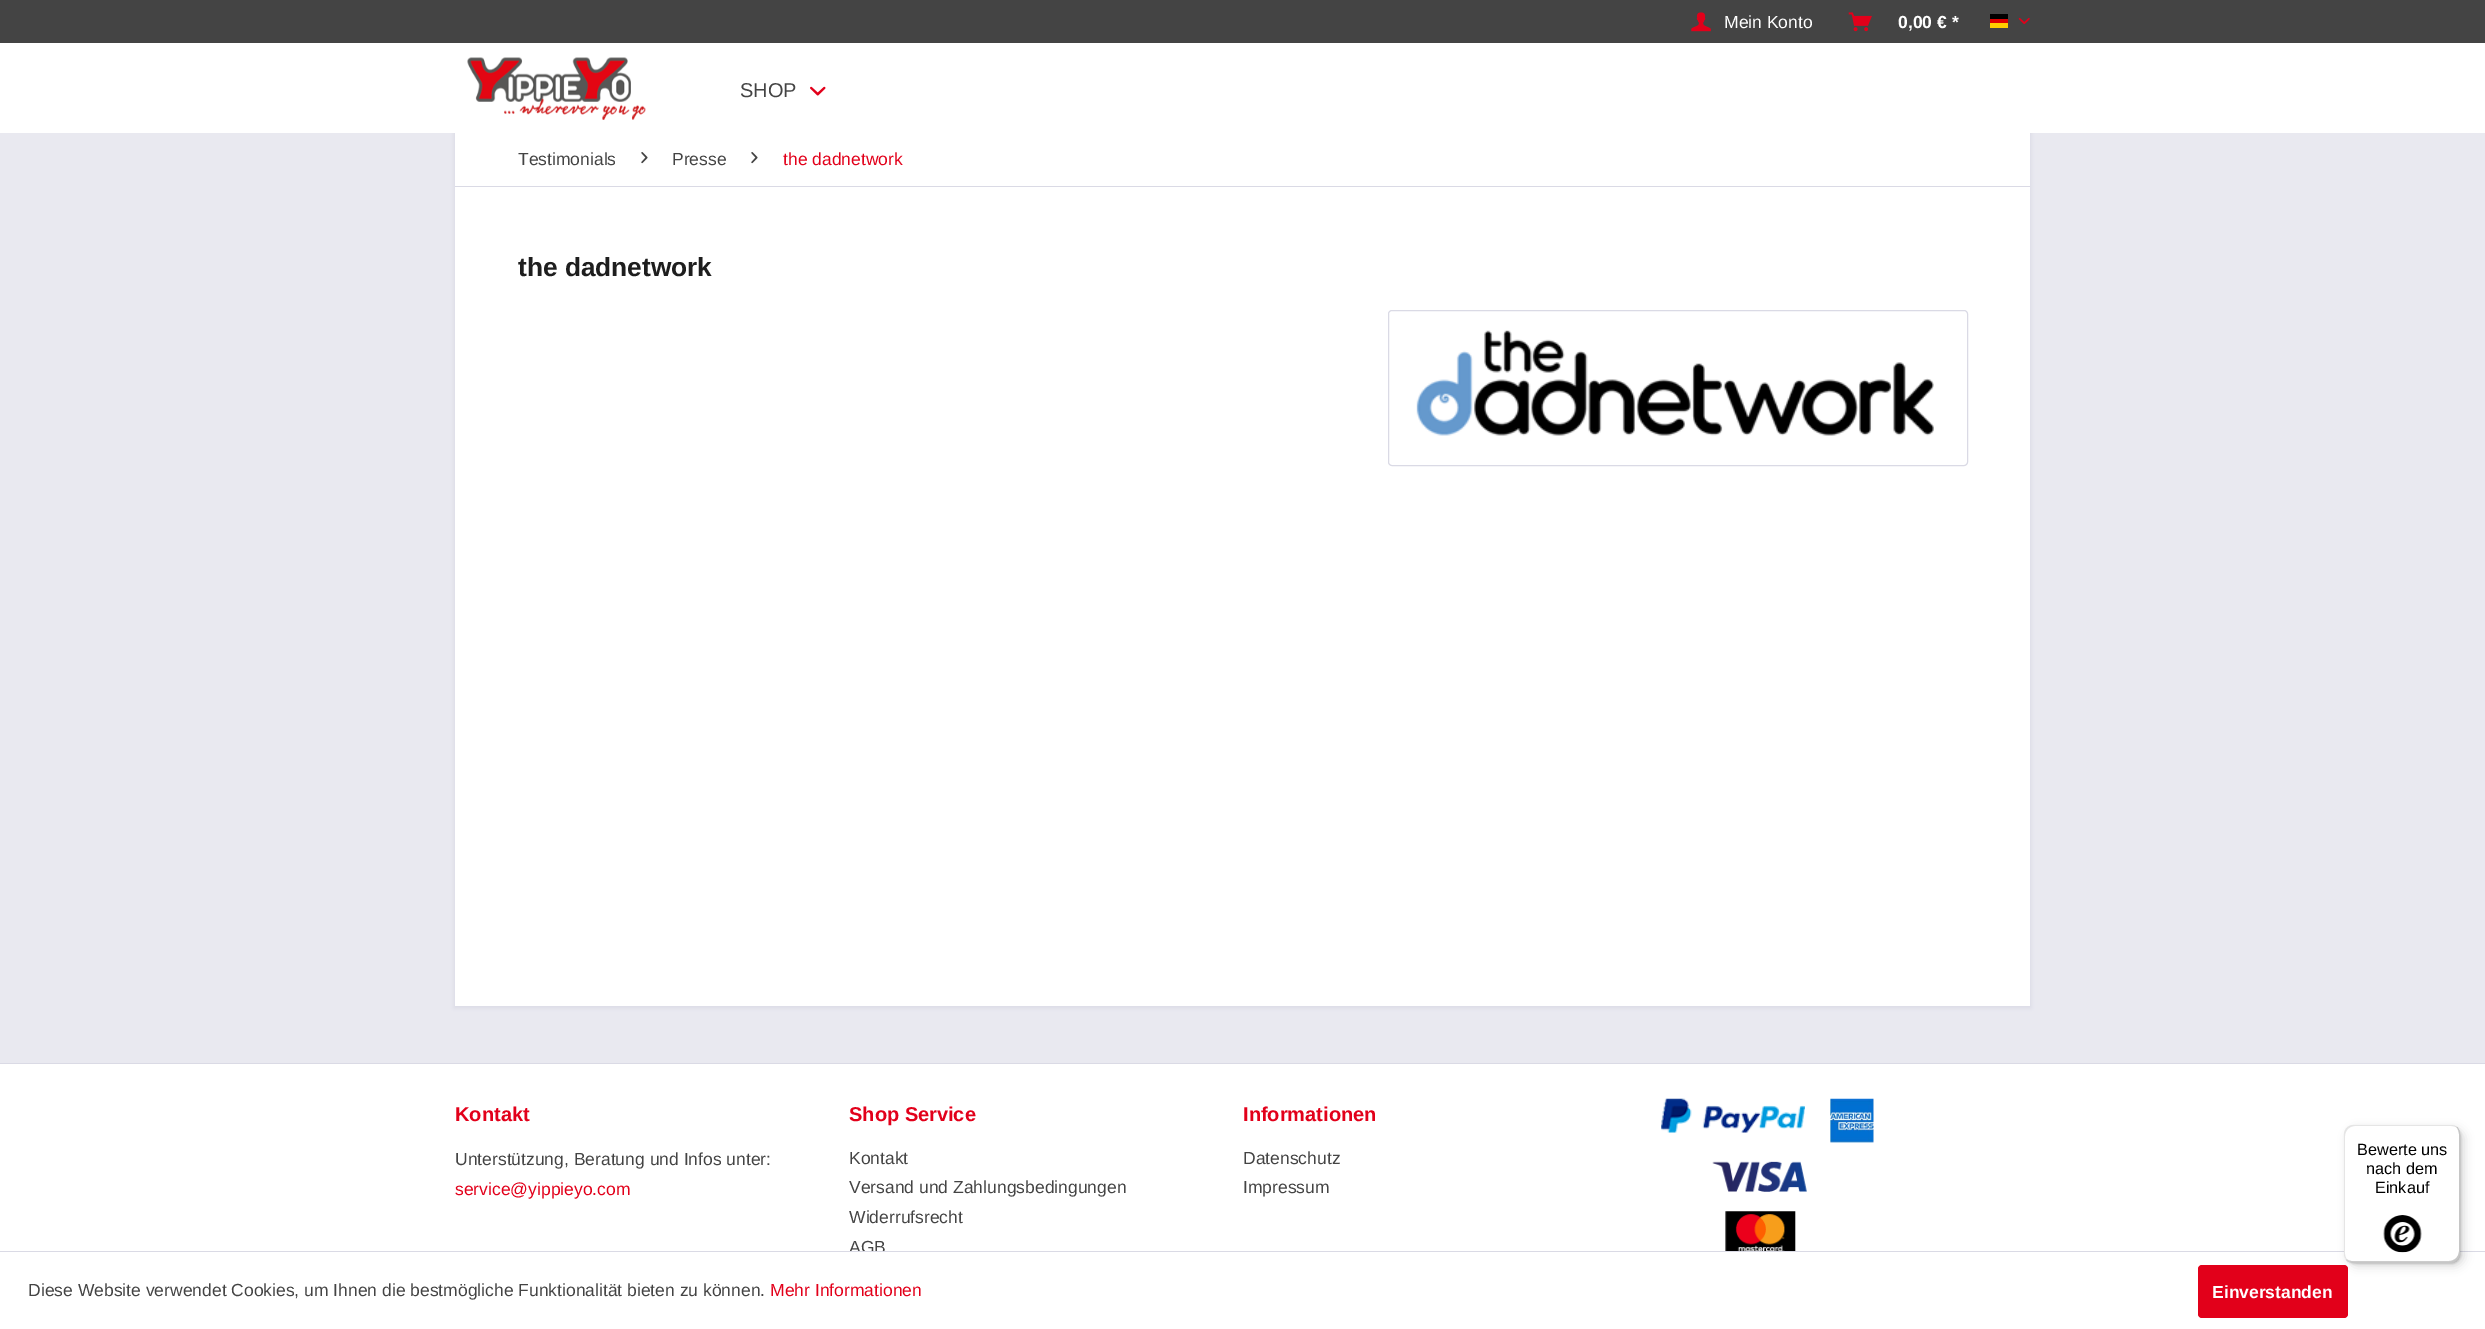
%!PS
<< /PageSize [2485 1329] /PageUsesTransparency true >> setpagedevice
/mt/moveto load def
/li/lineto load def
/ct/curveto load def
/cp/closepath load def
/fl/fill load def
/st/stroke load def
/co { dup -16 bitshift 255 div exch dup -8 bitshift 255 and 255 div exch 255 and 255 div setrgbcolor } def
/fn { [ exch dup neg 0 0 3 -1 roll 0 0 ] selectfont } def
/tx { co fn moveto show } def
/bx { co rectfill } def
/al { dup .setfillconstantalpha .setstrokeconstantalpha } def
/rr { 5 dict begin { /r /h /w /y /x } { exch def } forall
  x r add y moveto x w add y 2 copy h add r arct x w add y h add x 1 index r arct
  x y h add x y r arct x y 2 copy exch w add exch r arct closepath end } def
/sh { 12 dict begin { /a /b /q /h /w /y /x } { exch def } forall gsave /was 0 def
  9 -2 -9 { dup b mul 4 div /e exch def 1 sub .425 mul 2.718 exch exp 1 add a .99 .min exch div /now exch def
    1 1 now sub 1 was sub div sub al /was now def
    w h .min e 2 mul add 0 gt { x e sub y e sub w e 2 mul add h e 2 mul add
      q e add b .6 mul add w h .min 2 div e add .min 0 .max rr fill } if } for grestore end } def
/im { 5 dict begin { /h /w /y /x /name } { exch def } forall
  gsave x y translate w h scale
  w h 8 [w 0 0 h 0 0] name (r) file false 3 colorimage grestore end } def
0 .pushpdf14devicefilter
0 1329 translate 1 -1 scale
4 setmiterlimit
0 0 2485 1329 16#E9E9F0 bx
16#DADAE5 co
454 130 1577 878 0 2.5 1 sh
0 43 2485 90 16#FFFFFF bx
0 0 2485 43 16#444444 bx
(media/1.raw) 1691 12 20 20 im
(media/2.raw) 1848 12 24 20 im
1990 14 18 5 16#000000 bx
1990 19 18 4 16#DD0000 bx
1990 23 18 5 16#FFCE00 bx
(media/3.raw) 2018 17 12 8 im
(media/4.raw) 467 57 179 63 im
(media/5.raw) 810 86 16 10 im
455 133 1575 873 16#FFFFFF bx
455 186 1575 1 16#DADAE5 bx
(media/6.raw) 641 152 7 12 im
(media/6.raw) 751 152 7 12 im
1388.5 310.5 579 155 3.5 rr st
(media/7.raw) 1416 330 518 106 im
0 1064 2485 187 16#FFFFFF bx
0 1063 2485 1 16#DADAE5 bx
(media/8.raw) 1661 1098 144 35 im
(media/9.raw) 1830 1098 44 45 im
(media/10.raw) 1712 1161 95 31 im
(media/11.raw) 1725 1211 71 40 im
(Mein Konto) 1724 28 /LiberationSans-Regular 17.5 16#FFFFFF tx
(0,00 € *) 1898 28 /LiberationSans-Bold 17.5 16#FFFFFF tx
(SHOP) 740 97 /LiberationSans-Regular 20 16#444444 tx
(Testimonials) 518 165 /LiberationSans-Regular 17.5 16#444444 tx
(Presse) 672 165 /LiberationSans-Regular 17.5 16#444444 tx
(the dadnetwork) 783 165 /LiberationSans-Regular 17.5 16#E2001A tx
(the dadnetwork) 518 276 /LiberationSans-Bold 26.25 16#1E1E1E tx
(Kontakt) 455 1121 /LiberationSans-Bold 20 16#E2001A tx
(Unterstützung, Beratung und Infos unter:) 455 1165 /LiberationSans-Regular 17.5 16#444444 tx
(service@yippieyo.com) 455 1195 /LiberationSans-Regular 17.5 16#E2001A tx
(Shop Service) 849 1121 /LiberationSans-Bold 20 16#E2001A tx
(Kontakt) 849 1164 /LiberationSans-Regular 17.5 16#444444 tx
(Versand und Zahlungsbedingungen) 849 1193 /LiberationSans-Regular 17.5 16#444444 tx
(Widerrufsrecht) 849 1223 /LiberationSans-Regular 17.5 16#444444 tx
(AGB) 849 1253 /LiberationSans-Regular 17.5 16#444444 tx
(Informationen) 1243 1121 /LiberationSans-Bold 20 16#E2001A tx
(Datenschutz) 1243 1164 /LiberationSans-Regular 17.5 16#444444 tx
(Impressum) 1243 1193 /LiberationSans-Regular 17.5 16#444444 tx
0 1252 2485 77 16#FFFFFF bx
0 1251 2485 1 16#DADAE5 bx
(Diese Website verwendet Cookies, um Ihnen die bestmögliche Funktionalität bieten zu können.) 28 1296 /LiberationSans-Regular 17.5 16#444444 tx
(Mehr Informationen) 770 1296 /LiberationSans-Regular 17.5 16#E2001A tx
2198 1265 150 53 4 rr fl
16#000000 co
2345 1126 116 138 10 1 .15 sh
2348 1129 116 137 10 5 .15 sh
16#FFFFFF co
2344 1125 116 138 10 rr fl
0.1 al
16#000000 co
2355 1126 mt 2451 1126 li 2454 1126 2456 1127 2458 1128 ct 2456 1126 2453 1125 2450 1125 ct 2354 1125 li 2348 1125 2344 1129 2344 1135 ct 2344 1253 li 2344 1256 2345 1259 2348 1261 ct 2346 1259 2345 1256 2345 1254 ct 2345 1136 li 2345 1131 2349 1126 2355 1126 ct cp fl
0.2 al
2346 1259 mt 2348 1261 2351 1263 2354 1263 ct 2450 1263 li 2456 1263 2460 1259 2460 1253 ct 2460 1135 li 2460 1132 2459 1129 2457 1127 ct 2458 1129 2459 1131 2459 1134 ct 2459 1251 li 2459 1257 2454 1261 2449 1261 ct 2352 1261 li 2350 1261 2348 1260 2346 1259 ct cp fl
16#323232 co
2346 1260 mt 2348 1262 2351 1263 2354 1263 ct 2450 1263 li 2456 1263 2460 1259 2460 1253 ct 2460 1135 li 2460 1132 2459 1129 2456 1127 ct 2458 1129 2459 1132 2459 1134 ct 2459 1252 li 2459 1257 2455 1262 2449 1262 ct 2353 1262 li 2350 1262 2348 1261 2346 1260 ct cp fl
0.3 al
16#FFFFFF co
2345 1258 mt 2347 1261 2350 1263 2354 1263 ct 2450 1263 li 2456 1263 2460 1259 2460 1253 ct 2460 1135 li 2460 1132 2459 1129 2456 1127 ct 2458 1129 2459 1132 2459 1134 ct 2459 1252 li 2459 1257 2455 1262 2449 1262 ct 2353 1262 li 2350 1262 2347 1260 2345 1258 ct cp fl
1 al
(media/12.raw) 2383 1215 39 38 im
(Einkauf) 2375 1193 /LiberationSans-Regular 16.25 16#000000 tx
(nach dem) 2366 1174 /LiberationSans-Regular 16.25 16#000000 tx
(Bewerte uns) 2357 1155 /LiberationSans-Regular 16.25 16#000000 tx
(Einverstanden) 2212 1298 /LiberationSans-Bold 17.5 16#FFFFFF tx
.poppdf14devicefilter showpage
